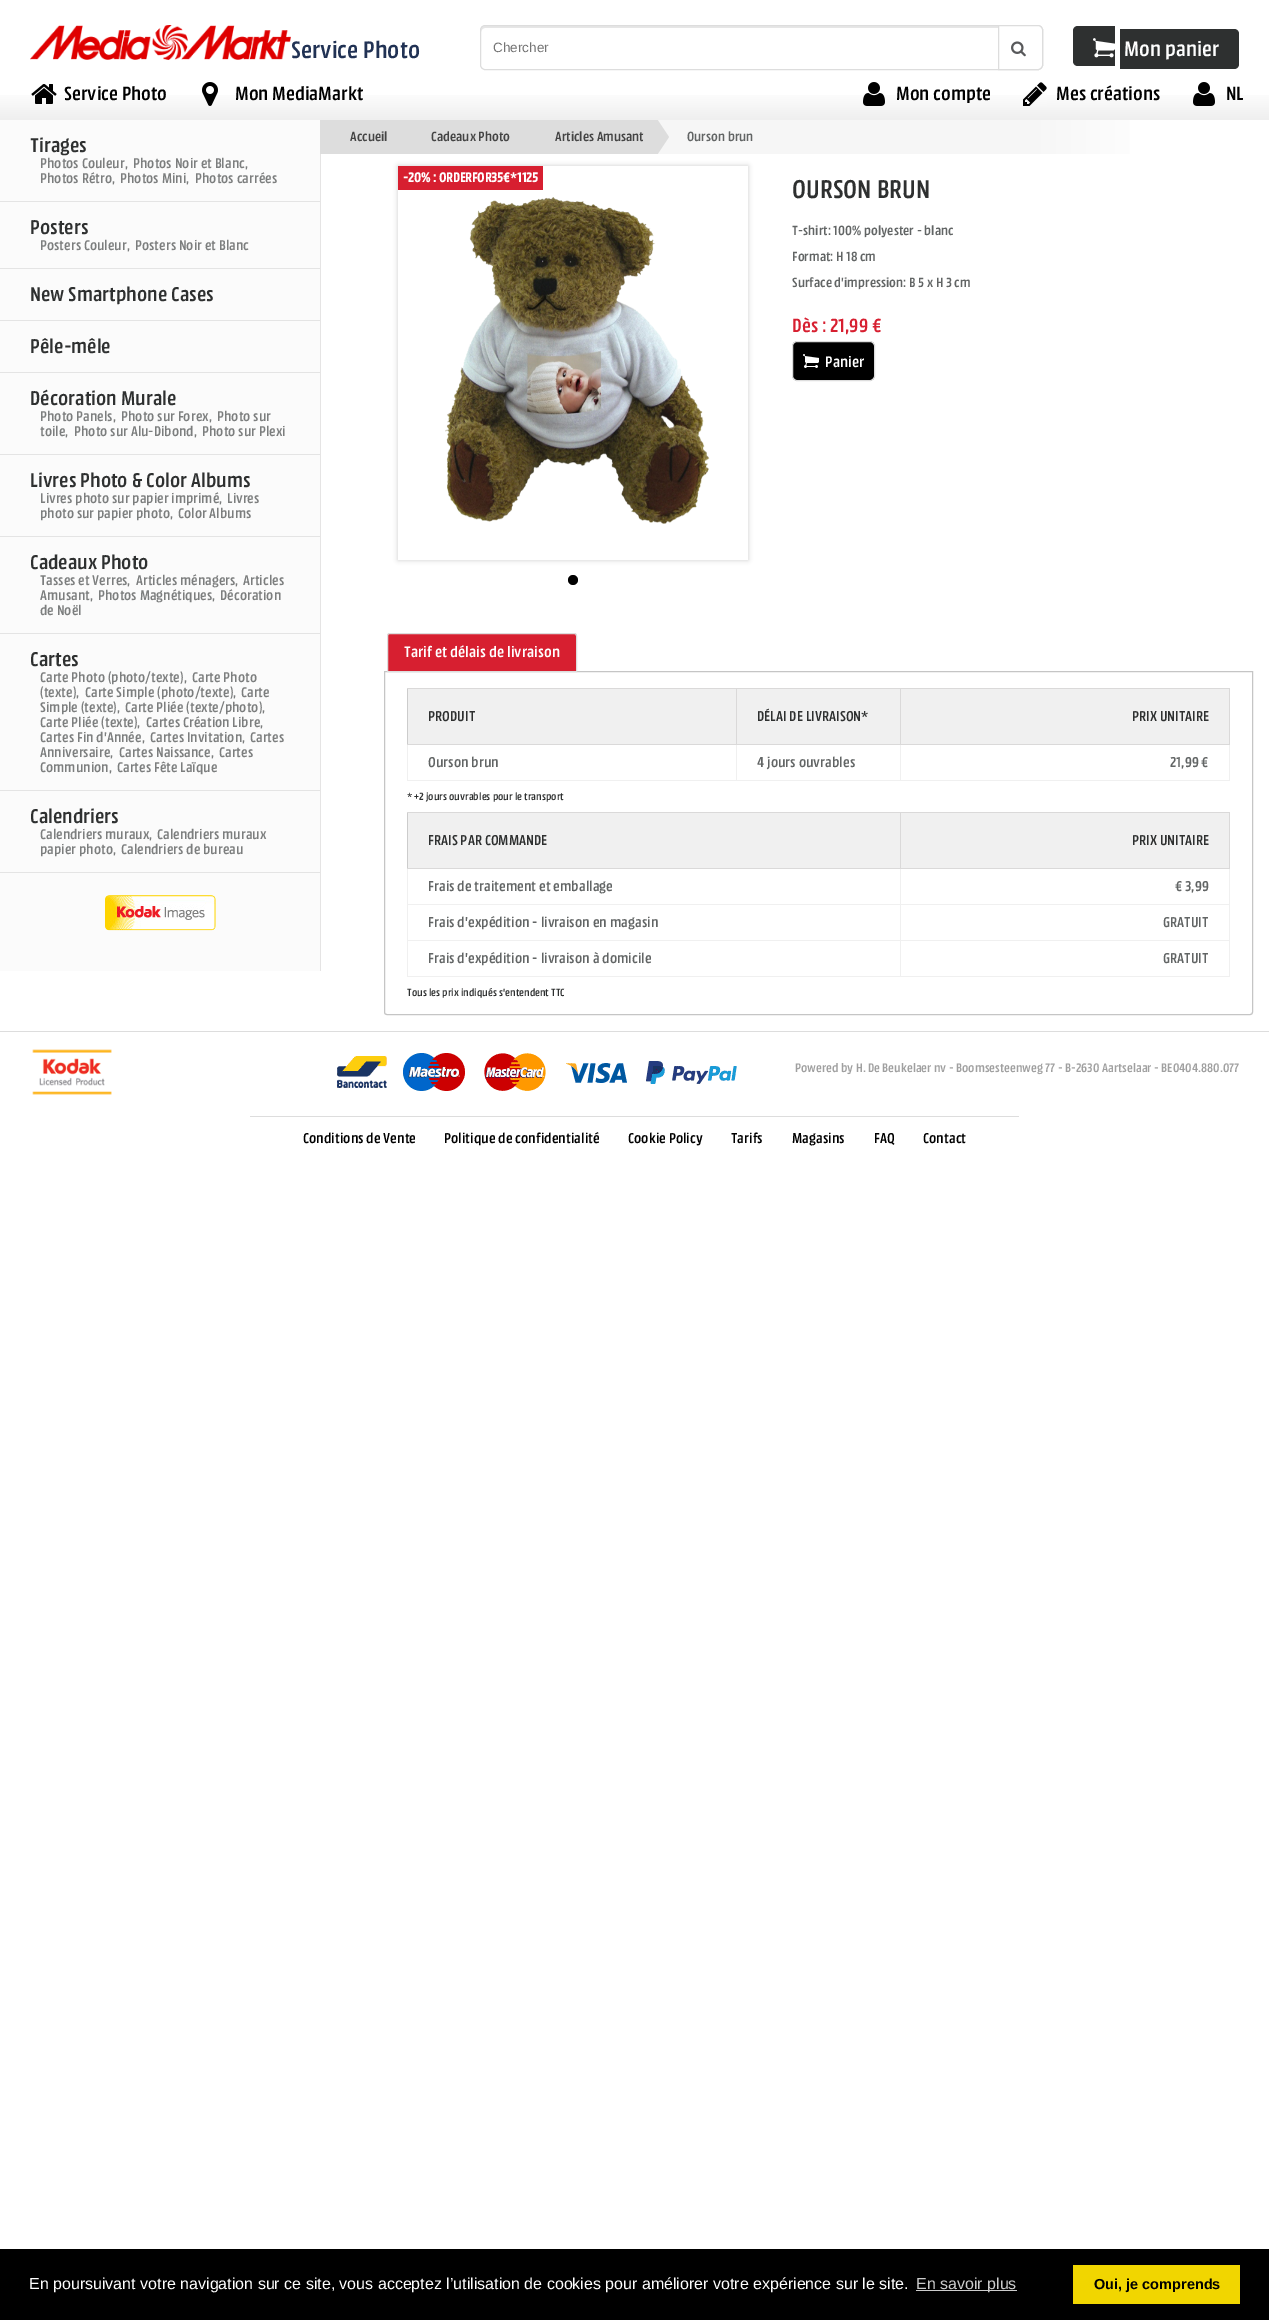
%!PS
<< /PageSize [1269 2320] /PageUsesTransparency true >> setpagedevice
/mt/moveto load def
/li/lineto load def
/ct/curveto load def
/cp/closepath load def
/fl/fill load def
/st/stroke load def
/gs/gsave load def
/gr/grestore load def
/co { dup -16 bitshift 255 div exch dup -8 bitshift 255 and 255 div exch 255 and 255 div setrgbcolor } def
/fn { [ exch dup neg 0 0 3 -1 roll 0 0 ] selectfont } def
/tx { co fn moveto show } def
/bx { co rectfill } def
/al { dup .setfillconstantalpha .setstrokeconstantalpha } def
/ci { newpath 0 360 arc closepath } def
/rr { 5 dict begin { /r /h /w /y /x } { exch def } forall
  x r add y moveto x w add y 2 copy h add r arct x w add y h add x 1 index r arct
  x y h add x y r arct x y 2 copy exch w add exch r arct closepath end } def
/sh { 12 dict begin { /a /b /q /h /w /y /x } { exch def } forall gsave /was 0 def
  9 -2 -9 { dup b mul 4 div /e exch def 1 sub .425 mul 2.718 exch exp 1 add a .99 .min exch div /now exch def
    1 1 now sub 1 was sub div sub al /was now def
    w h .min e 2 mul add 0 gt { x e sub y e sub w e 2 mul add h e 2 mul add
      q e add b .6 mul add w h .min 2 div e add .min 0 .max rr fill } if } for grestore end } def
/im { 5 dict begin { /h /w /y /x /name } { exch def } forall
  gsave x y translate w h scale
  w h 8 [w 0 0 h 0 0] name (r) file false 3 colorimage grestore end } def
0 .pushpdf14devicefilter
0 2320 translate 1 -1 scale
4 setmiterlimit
0 0 1269 2320 16#FFFFFF bx
gs 0 95 mt 1269 95 li 1269 120 li 0 120 li cp clip newpath
<< /ShadingType 2 /ColorSpace /DeviceRGB /Coords [635 0 635 120] /Extend [true true] /Function << /FunctionType 3 /Domain [0 1] /Functions [<< /FunctionType 2 /Domain [0 1] /C0 [1 1 1] /C1 [1 1 1] /N 1 >> << /FunctionType 2 /Domain [0 1] /C0 [1 1 1] /C1 [.937 .937 .937] /N 1 >>] /Bounds [.75] /Encode [0 1 0 1] >> >> shfill gr
(media/1.raw) 30 25 261 35 im
16#E6E6E6 co
485 28 mt 1038 28 li 1040 28 1042 30 1042 32 ct 1042 30 li 1042 28 1040 26 1038 26 ct 485 26 li 483 26 481 28 481 30 ct 481 32 li 481 30 483 28 485 28 ct cp fl
16#DDDDDD co
480.5 25.5 562 44 4.5 rr st
16#FFFFFF co
998.5 25.5 mt 1038 25.5 li 1040.5 25.5 1042.5 27.5 1042.5 30 ct 1042.5 65 li 1042.5 67.5 1040.5 69.5 1038 69.5 ct 998.5 69.5 li cp gs fl gr
16#DDDDDD co
st
(media/2.raw) 1011 41 15 16 im
16#2E3030 co
1078 26 mt 1115 26 li 1115 66 li 1078 66 li 1075 66 1073 64 1073 61 ct 1073 31 li 1073 28 1075 26 1078 26 ct cp fl
(media/3.raw) 1093 38 22 20 im
1120 29 4 40 16#2E3030 bx
1124 29 mt 1234 29 li 1237 29 1239 31 1239 34 ct 1239 64 li 1239 67 1237 69 1234 69 ct 1124 69 li cp fl
(media/4.raw) 31 84 26 20 im
(media/5.raw) 202 82 16 24 im
(media/6.raw) 863 82 22 24 im
(media/7.raw) 1023 82 24 24 im
(media/6.raw) 1193 82 22 24 im
0 120 320 851 16#FBFBFB bx
320 154 1 817 16#E5E4E4 bx
0 201 320 1 16#E4E4E4 bx
0 268 320 1 16#E4E4E4 bx
0 320 320 1 16#E4E4E4 bx
0 372 320 1 16#E4E4E4 bx
0 454 320 1 16#E4E4E4 bx
0 536 320 1 16#E4E4E4 bx
0 633 320 1 16#E4E4E4 bx
0 790 320 1 16#E4E4E4 bx
0 872 320 1 16#E4E4E4 bx
(media/8.raw) 105 895 111 36 im
gs 657 120 mt 1130 120 li 1130 154 li 657 154 li cp clip newpath
<< /ShadingType 2 /ColorSpace /DeviceRGB /Coords [320 137 1170 137] /Extend [true true] /Function << /FunctionType 3 /Domain [0 1] /Functions [<< /FunctionType 2 /Domain [0 1] /C0 [.965 .965 .965] /C1 [.965 .965 .965] /N 1 >> << /FunctionType 2 /Domain [0 1] /C0 [.965 .965 .965] /C1 [1 1 1] /N 1 >>] /Bounds [.83] /Encode [0 1 0 1] >> >> shfill gr
320 120 79 34 16#DDDDDD bx
401 120 254 34 16#DDDDDD bx
gs
320 120 850 34 rectclip
399 158 mt 399 116 li 413 137 li cp fl
655 158 mt 655 116 li 669 137 li cp fl
gr
gs
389 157 mt 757 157 li 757 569 li 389 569 li cp 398 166 mt 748 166 li 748 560 li 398 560 li cp eoclip newpath
16#CCCCCC co
398 166 350 394 0 2.5 1 sh
gr
(media/9.raw) 445 197 265 327 im
16#000000 co
573 580 5 ci fl
398 166 145 24 16#D71F30 bx
16#000000 co
792.5 341.5 82 39 4.5 rr gs fl gr
16#DDDDDD co
st
(media/10.raw) 803 354 16 14 im
16#C5C5C5 co
384.5 671.5 mt 1252.5 671.5 li 1252.5 1012 li 1252.5 1013.5 1251.5 1014.5 1250 1014.5 ct 387 1014.5 li 385.5 1014.5 384.5 1013.5 384.5 1012 ct cp st
16#D71F30 co
390 633.5 mt 574 633.5 li 575.5 633.5 576.5 634.5 576.5 636 ct 576.5 671.5 li 387.5 671.5 li 387.5 636 li 387.5 634.5 388.5 633.5 390 633.5 ct cp gs fl gr
16#DDDDDD co
st
407 688 1 56 16#CCCCCC bx
408 689 328 55 16#F0F0F0 bx
900 688 330 1 16#DAD9D9 bx
1229 744 1 37 16#F0F0F0 bx
1229 688 1 57 16#DAD9D9 bx
900 780 330 1 16#F0F0F0 bx
900 744 1 37 16#F0F0F0 bx
900 744 330 1 16#DAD9D9 bx
900 688 1 57 16#DAD9D9 bx
736 688 165 1 16#DAD9D9 bx
736 780 165 1 16#F0F0F0 bx
736 744 1 37 16#F0F0F0 bx
736 744 165 1 16#DAD9D9 bx
736 688 1 57 16#DAD9D9 bx
407 688 330 1 16#DAD9D9 bx
407 780 330 1 16#F0F0F0 bx
407 744 1 37 16#F0F0F0 bx
407 744 330 1 16#DAD9D9 bx
737 689 163 55 16#F0F0F0 bx
901 689 328 55 16#F0F0F0 bx
407 812 1 56 16#CCCCCC bx
408 813 492 55 16#F0F0F0 bx
900 812 330 1 16#DAD9D9 bx
900 904 330 1 16#F0F0F0 bx
900 940 330 1 16#F0F0F0 bx
1229 940 1 37 16#F0F0F0 bx
1229 868 1 73 16#F0F0F0 bx
1229 812 1 57 16#DAD9D9 bx
900 976 330 1 16#F0F0F0 bx
900 940 1 37 16#F0F0F0 bx
407 940 494 1 16#F0F0F0 bx
900 904 1 37 16#F0F0F0 bx
407 904 494 1 16#F0F0F0 bx
900 868 1 37 16#F0F0F0 bx
900 868 330 1 16#DAD9D9 bx
900 812 1 57 16#DAD9D9 bx
407 812 494 1 16#DAD9D9 bx
407 976 494 1 16#F0F0F0 bx
407 940 1 37 16#F0F0F0 bx
407 868 1 73 16#F0F0F0 bx
407 868 494 1 16#DAD9D9 bx
901 813 328 55 16#F0F0F0 bx
0 1031 1269 1 16#DDDDDD bx
(media/11.raw) 32 1049 80 46 im
250 1116 769 1 16#DDDDDD bx
(media/12.raw) 337 1053 400 38 im
0 2249 1269 71 16#000000 bx
916 2290 101 1 16#CCCCCC bx
1073 2265 167 39 16#F1D600 bx
(Service Photo) 291 58 /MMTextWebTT-Regular 25 16#213254 tx
(Chercher) 493 52 /LiberationSans-Regular 13.5 16#757575 tx
(Mon panier) 1124 56 /MMTextWebTT-Regular 22 16#FFFFFF tx
(Service Photo) 64 100 /MMTextWebTT-Regular 20 16#000000 tx
(Mon MediaMarkt) 235 100 /MMTextWebTT-Regular 20 16#000000 tx
(Mon compte) 896 100 /MMTextWebTT-Regular 20 16#000000 tx
(Mes créations) 1056 100 /MMTextWebTT-Regular 20 16#000000 tx
(NL) 1226 100 /MMTextWebTT-Regular 20 16#000000 tx
(Tirages) 30 152 /MMTextWebTT-Regular 21 16#2E3030 tx
(Photos Couleur,) 40 168 /MMTextWebTT-Regular 14.75 16#7C7E7E tx
(Photos Noir et Blanc,) 133 168 /MMTextWebTT-Regular 14.75 16#7C7E7E tx
(Photos Rétro,) 40 183 /MMTextWebTT-Regular 14.75 16#7C7E7E tx
(Photos Mini,) 120 183 /MMTextWebTT-Regular 14.75 16#7C7E7E tx
(Photos carrées) 195 183 /MMTextWebTT-Regular 14.75 16#7C7E7E tx
(Posters) 30 234 /MMTextWebTT-Regular 21 16#2E3030 tx
(Posters Couleur,) 40 250 /MMTextWebTT-Regular 14.75 16#7C7E7E tx
(Posters Noir et Blanc) 135 250 /MMTextWebTT-Regular 14.75 16#7C7E7E tx
(New Smartphone Cases) 30 301 /MMTextWebTT-Regular 21 16#2E3030 tx
(Pêle-mêle) 30 353 /MMTextWebTT-Regular 21 16#2E3030 tx
(Décoration Murale) 30 405 /MMTextWebTT-Regular 21 16#2E3030 tx
(Photo Panels,) 40 421 /MMTextWebTT-Regular 14.75 16#7C7E7E tx
(Photo sur Forex,) 121 421 /MMTextWebTT-Regular 14.75 16#7C7E7E tx
(Photo sur) 217 421 /MMTextWebTT-Regular 14.75 16#7C7E7E tx
(toile,) 40 436 /MMTextWebTT-Regular 14.75 16#7C7E7E tx
(Photo sur Alu-Dibond,) 74 436 /MMTextWebTT-Regular 14.75 16#7C7E7E tx
(Photo sur Plexi) 202 436 /MMTextWebTT-Regular 14.75 16#7C7E7E tx
(Livres Photo & Color Albums) 30 487 /MMTextWebTT-Regular 21 16#2E3030 tx
(Livres photo sur papier imprimé,) 40 503 /MMTextWebTT-Regular 14.75 16#7C7E7E tx
(Livres) 227 503 /MMTextWebTT-Regular 14.75 16#7C7E7E tx
(photo sur papier photo,) 40 518 /MMTextWebTT-Regular 14.75 16#7C7E7E tx
(Color Albums) 178 518 /MMTextWebTT-Regular 14.75 16#7C7E7E tx
(Cadeaux Photo) 30 569 /MMTextWebTT-Regular 21 16#2E3030 tx
(Tasses et Verres,) 40 585 /MMTextWebTT-Regular 14.75 16#7C7E7E tx
(Articles ménagers,) 136 585 /MMTextWebTT-Regular 14.75 16#7C7E7E tx
(Articles) 243 585 /MMTextWebTT-Regular 14.75 16#7C7E7E tx
(Amusant,) 40 600 /MMTextWebTT-Regular 14.75 16#7C7E7E tx
(Photos Magnétiques,) 98 600 /MMTextWebTT-Regular 14.75 16#7C7E7E tx
(Décoration) 220 600 /MMTextWebTT-Regular 14.75 16#7C7E7E tx
(de Noël) 40 615 /MMTextWebTT-Regular 14.75 16#7C7E7E tx
(Cartes) 30 666 /MMTextWebTT-Regular 21 16#2E3030 tx
(Carte Photo \(photo/texte\),) 40 682 /MMTextWebTT-Regular 14.75 16#7C7E7E tx
(Carte Photo) 192 682 /MMTextWebTT-Regular 14.75 16#7C7E7E tx
(\(texte\),) 40 697 /MMTextWebTT-Regular 14.75 16#7C7E7E tx
(Carte Simple \(photo/texte\),) 85 697 /MMTextWebTT-Regular 14.75 16#7C7E7E tx
(Carte) 241 697 /MMTextWebTT-Regular 14.75 16#7C7E7E tx
(Simple \(texte\),) 40 712 /MMTextWebTT-Regular 14.75 16#7C7E7E tx
(Carte Pliée \(texte/photo\),) 125 712 /MMTextWebTT-Regular 14.75 16#7C7E7E tx
(Carte Pliée \(texte\),) 40 727 /MMTextWebTT-Regular 14.75 16#7C7E7E tx
(Cartes Création Libre,) 146 727 /MMTextWebTT-Regular 14.75 16#7C7E7E tx
(Cartes Fin d'Année,) 40 742 /MMTextWebTT-Regular 14.75 16#7C7E7E tx
(Cartes Invitation,) 150 742 /MMTextWebTT-Regular 14.75 16#7C7E7E tx
(Cartes) 250 742 /MMTextWebTT-Regular 14.75 16#7C7E7E tx
(Anniversaire,) 40 757 /MMTextWebTT-Regular 14.75 16#7C7E7E tx
(Cartes Naissance,) 119 757 /MMTextWebTT-Regular 14.75 16#7C7E7E tx
(Cartes) 219 757 /MMTextWebTT-Regular 14.75 16#7C7E7E tx
(Communion,) 40 772 /MMTextWebTT-Regular 14.75 16#7C7E7E tx
(Cartes Fête Laïque) 117 772 /MMTextWebTT-Regular 14.75 16#7C7E7E tx
(Calendriers) 30 823 /MMTextWebTT-Regular 21 16#2E3030 tx
(Calendriers muraux,) 40 839 /MMTextWebTT-Regular 14.75 16#7C7E7E tx
(Calendriers muraux) 157 839 /MMTextWebTT-Regular 14.75 16#7C7E7E tx
(papier photo,) 40 854 /MMTextWebTT-Regular 14.75 16#7C7E7E tx
(Calendriers de bureau) 121 854 /MMTextWebTT-Regular 14.75 16#7C7E7E tx
(Accueil) 350 141 /MMTextWebTT-Regular 14 16#444444 tx
(Cadeaux Photo) 431 141 /MMTextWebTT-Regular 14 16#444444 tx
(Articles Amusant) 555 141 /MMTextWebTT-Regular 14 16#444444 tx
(Ourson brun) 687 141 /MMTextWebTT-Regular 14 16#626565 tx
(-20% : ORDERFOR35€*1125) 403 182 /MMTextWebTT-Bold 14 16#FFFFFF tx
(OURSON BRUN) 792 198 /MMTextWebTT-Regular 27 16#2E3030 tx
(T-shirt: 100% polyester - blanc) 792 235 /MMTextWebTT-Regular 14 16#626565 tx
(Format: H 18 cm) 792 261 /MMTextWebTT-Regular 14 16#626565 tx
(Surface d'impression: B 5 x H 3 cm) 792 287 /MMTextWebTT-Regular 14 16#626565 tx
(Dès : 21,99 €) 792 332 /MMTextWebTT-Regular 20 16#D71F30 tx
(Panier) 825 367 /MMTextWebTT-Regular 16 16#FFFFFF tx
(Tarif et délais de livraison) 404 657 /MMTextWebTT-Regular 16 16#FFFFFF tx
(PRODUIT) 428 721 /MMTextWebTT-Regular 15 16#2E3030 tx
(DÉLAI DE LIVRAISON*) 757 721 /MMTextWebTT-Regular 15 16#2E3030 tx
(PRIX UNITAIRE) 1132 721 /MMTextWebTT-Regular 15 16#2E3030 tx
(Ourson brun) 428 767 /MMTextWebTT-Regular 15 16#626565 tx
(4 jours ouvrables) 757 767 /MMTextWebTT-Regular 15 16#626565 tx
(21,99 €) 1170 767 /MMTextWebTT-Regular 15 16#626565 tx
(* +2 jours ouvrables pour le transport) 407 800 /MMTextWebTT-Regular 11 16#2E3030 tx
(FRAIS PAR COMMANDE) 428 845 /MMTextWebTT-Regular 15 16#2E3030 tx
(PRIX UNITAIRE) 1132 845 /MMTextWebTT-Regular 15 16#2E3030 tx
(Frais de traitement et emballage) 428 891 /MMTextWebTT-Regular 15 16#626565 tx
(€ 3,99) 1175 891 /MMTextWebTT-Regular 15 16#626565 tx
(Frais d'expédition - livraison en magasin) 428 927 /MMTextWebTT-Regular 15 16#626565 tx
(GRATUIT) 1163 927 /MMTextWebTT-Regular 15 16#626565 tx
(Frais d'expédition - livraison à domicile) 428 963 /MMTextWebTT-Regular 15 16#626565 tx
(GRATUIT) 1163 963 /MMTextWebTT-Regular 15 16#626565 tx
(Tous les prix indiqués s'entendent TTC) 407 996 /MMTextWebTT-Regular 11 16#2E3030 tx
(Powered by H. De Beukelaer nv - Boomsesteenweg 77 - B-2630 Aartselaar - BE0404.880.077) 795 1072 /MMTextWebTT-Regular 13 16#A0A0A0 tx
(Conditions de Vente) 303 1143 /MMTextWebTT-Regular 15 16#000000 tx
(Politique de confidentialité) 444 1143 /MMTextWebTT-Regular 15 16#000000 tx
(Cookie Policy) 628 1143 /MMTextWebTT-Regular 15 16#000000 tx
(Tarifs) 731 1143 /MMTextWebTT-Regular 15 16#000000 tx
(Magasins) 792 1143 /MMTextWebTT-Regular 15 16#000000 tx
(FAQ) 874 1143 /MMTextWebTT-Regular 15 16#000000 tx
(Contact) 923 1143 /MMTextWebTT-Regular 15 16#000000 tx
(En poursuivant votre navigation sur ce site, vous acceptez l’utilisation de cookies pour améliorer votre expérience sur le site.) 29 2289 /LiberationSans-Regular 16 16#FFFFFF tx
(En savoir plus) 916 2289 /LiberationSans-Regular 16 16#CCCCCC tx
(Oui, je comprends) 1094 2289 /LiberationSans-Bold 14.5 16#000000 tx
.poppdf14devicefilter showpage
